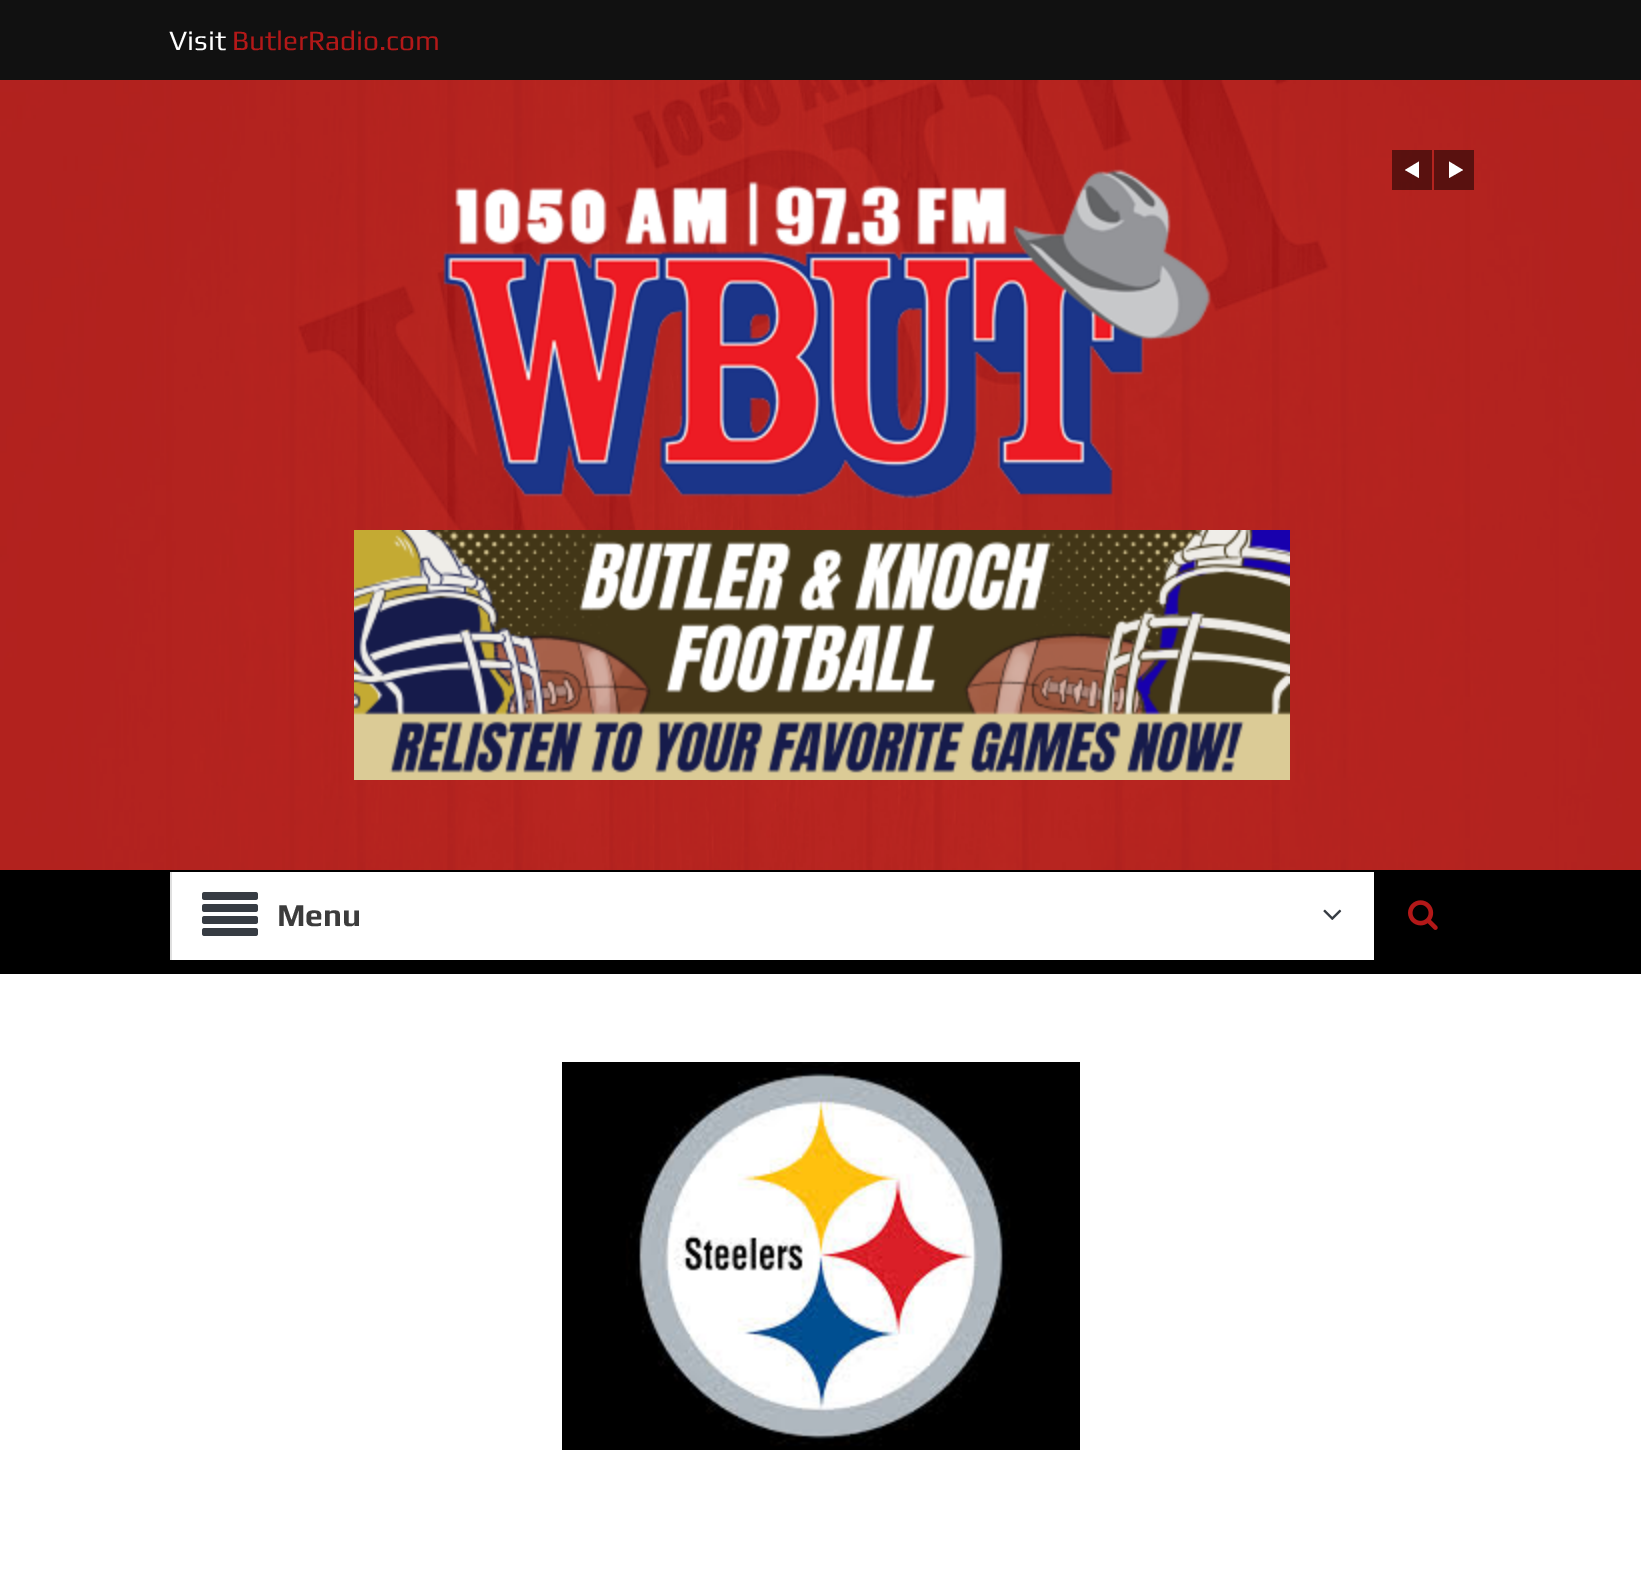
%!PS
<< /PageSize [1641 1570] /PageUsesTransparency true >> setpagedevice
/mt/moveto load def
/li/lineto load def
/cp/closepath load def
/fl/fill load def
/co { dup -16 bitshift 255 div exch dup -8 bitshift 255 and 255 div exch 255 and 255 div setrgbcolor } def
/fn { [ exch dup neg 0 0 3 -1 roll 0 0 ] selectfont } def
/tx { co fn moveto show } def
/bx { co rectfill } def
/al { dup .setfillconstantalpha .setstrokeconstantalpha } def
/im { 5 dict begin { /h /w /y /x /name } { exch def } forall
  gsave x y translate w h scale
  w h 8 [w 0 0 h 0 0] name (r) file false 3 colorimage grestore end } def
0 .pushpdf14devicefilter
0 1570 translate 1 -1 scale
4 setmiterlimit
0 0 1641 1570 16#FFFFFF bx
0 0 1641 80 16#111111 bx
(media/1.raw) 0 80 1641 790 im
0.5 al
1392 150 40 40 16#000000 bx
1 al
16#FFFFFF co
1419 161.5 mt 1419 178 li 1405 170 li cp fl
1434 150 40 40 16#59110F bx
16#FFFFFF co
1449 161.5 mt 1449 178 li 1463 170 li cp fl
(media/2.raw) 354 530 936 250 im
(media/3.raw) 443 169 768 330 im
0 870 1641 104 16#000000 bx
172 872 1202 88 16#FFFFFF bx
170 872 2 88 16#DFDFDF bx
(media/4.raw) 202 892 56 44 im
(media/5.raw) 1323 909 19 11 im
(media/6.raw) 1408 900 30 30 im
(media/7.raw) 562 1062 518 388 im
(Visit) 169 50 /Play-Regular 28 16#FFFFFF tx
(ButlerRadio.com) 232 50 /Play-Regular 28 16#B31818 tx
(Menu) 277 926 /Play-Bold 32 16#3C3C3C tx
.poppdf14devicefilter showpage
